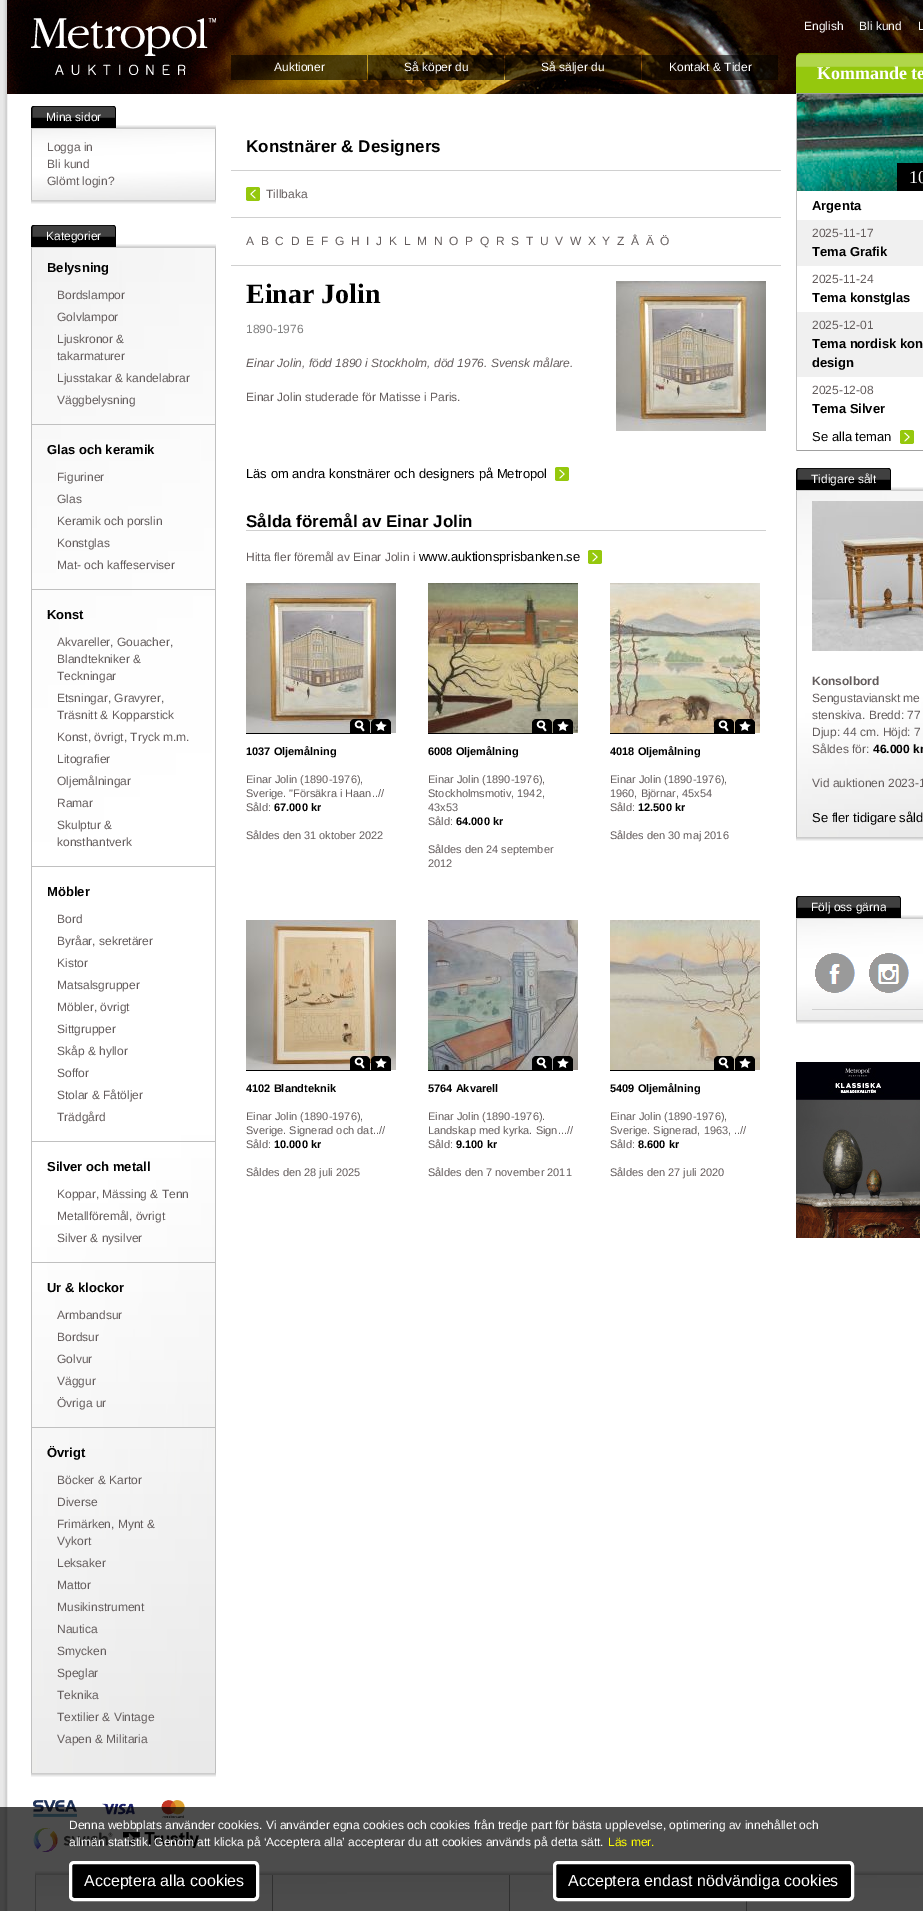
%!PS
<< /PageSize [923 1911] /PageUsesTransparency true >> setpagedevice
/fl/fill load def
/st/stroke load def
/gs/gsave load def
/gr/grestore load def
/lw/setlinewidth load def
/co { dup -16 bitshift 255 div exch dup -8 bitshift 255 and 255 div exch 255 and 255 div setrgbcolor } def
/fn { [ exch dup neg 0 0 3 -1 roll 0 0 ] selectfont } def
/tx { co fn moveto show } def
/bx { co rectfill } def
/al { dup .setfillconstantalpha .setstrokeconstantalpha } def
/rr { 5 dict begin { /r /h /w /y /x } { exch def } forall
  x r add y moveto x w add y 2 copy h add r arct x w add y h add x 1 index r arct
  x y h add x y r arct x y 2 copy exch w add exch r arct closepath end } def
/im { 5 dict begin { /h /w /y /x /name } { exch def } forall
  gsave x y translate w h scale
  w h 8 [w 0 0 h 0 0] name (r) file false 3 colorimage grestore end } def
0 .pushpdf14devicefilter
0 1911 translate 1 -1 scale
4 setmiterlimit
0 0 923 1911 16#E8E8E8 bx
(media/1.raw) 3 0 920 1911 im
(media/2.raw) 7 0 916 94 im
(media/3.raw) 31 18 185 57 im
0.6 al
231 55 136 25 16#000000 bx
368 55 136 25 16#000000 bx
505 55 136 25 16#000000 bx
642 55 136 25 16#000000 bx
1 al
(media/4.raw) 796 53 127 40 im
(media/8.raw) 31 125 185 4 im
(media/5.raw) 31 106 15 22 im
(media/6.raw) 46 106 55 22 im
(media/9.raw) 31 200 185 4 im
215 129 1 71 16#C0C0C0 bx
31 129 1 71 16#C0C0C0 bx
(media/10.raw) 32 129 183 71 im
(media/8.raw) 31 244 185 4 im
(media/5.raw) 31 225 15 22 im
(media/6.raw) 46 225 55 22 im
(media/9.raw) 31 1773 185 4 im
215 248 1 1525 16#C0C0C0 bx
31 248 1 1525 16#C0C0C0 bx
(media/11.raw) 32 248 183 1525 im
32 424 183 1 16#C0C0C0 bx
32 589 183 1 16#C0C0C0 bx
32 866 183 1 16#C0C0C0 bx
32 1141 183 1 16#C0C0C0 bx
32 1262 183 1 16#C0C0C0 bx
32 1427 183 1 16#C0C0C0 bx
(media/12.raw) 33 1800 166 52 im
231 170 550 1 16#D0D0D0 bx
(media/13.raw) 246 187 14 14 im
231 217 550 1 16#D0D0D0 bx
231 265 550 1 16#D0D0D0 bx
(media/14.raw) 616 281 150 150 im
(media/15.raw) 555 467 14 14 im
246 530 520 1 16#D0D0D0 bx
(media/15.raw) 588 550 14 14 im
246 733 145 1 16#000000 bx
(media/14.raw) 246 583 150 150 im
(media/16.raw) 350 719 20 14 im
(media/17.raw) 371 719 20 14 im
428 733 145 1 16#000000 bx
(media/18.raw) 428 583 150 150 im
(media/19.raw) 532 719 20 14 im
(media/20.raw) 553 719 20 14 im
610 733 145 1 16#000000 bx
(media/21.raw) 610 583 150 150 im
(media/22.raw) 714 719 20 14 im
(media/23.raw) 735 719 20 14 im
246 1070 145 1 16#000000 bx
(media/24.raw) 246 920 150 150 im
(media/25.raw) 350 1056 20 14 im
(media/26.raw) 371 1056 20 14 im
428 1070 145 1 16#000000 bx
(media/27.raw) 428 920 150 150 im
(media/28.raw) 532 1056 20 14 im
(media/29.raw) 553 1056 20 14 im
610 1070 145 1 16#000000 bx
(media/30.raw) 610 920 150 150 im
(media/31.raw) 714 1056 20 14 im
(media/32.raw) 735 1056 20 14 im
796 93 127 1 16#A0A0A0 bx
796 450 127 1 16#A0A0A0 bx
796 93 1 358 16#C0C0C0 bx
(media/33.raw) 797 94 126 97 im
897 163 26 28 16#000000 bx
797 220 126 46 16#F0F0F0 bx
797 312 126 65 16#F0F0F0 bx
(media/15.raw) 900 430 14 14 im
(media/35.raw) 796 487 127 4 im
(media/5.raw) 796 468 15 22 im
(media/34.raw) 811 468 65 22 im
(media/36.raw) 796 837 127 4 im
796 491 1 346 16#C0C0C0 bx
(media/37.raw) 797 491 126 346 im
(media/38.raw) 812 501 111 150 im
(media/35.raw) 796 915 127 4 im
(media/5.raw) 796 896 15 22 im
(media/39.raw) 811 896 75 22 im
(media/36.raw) 796 1020 127 4 im
796 919 1 101 16#C0C0C0 bx
(media/40.raw) 797 919 126 101 im
(media/41.raw) 815 953 40 40 im
(media/42.raw) 869 953 40 40 im
812 1009 111 1 16#D0D0D0 bx
(media/43.raw) 796 1062 124 176 im
(media/44.raw) 35 1871 888 4 im
35 1875 1 36 16#C0C0C0 bx
(media/45.raw) 36 1875 887 25 im
272 1875 1 36 16#A0A0A0 bx
509 1875 1 36 16#A0A0A0 bx
746 1901 1 10 16#A0A0A0 bx
0.7 al
0 1807 923 104 16#000000 bx
1 al
70.5 1862.5 187 37 3.5 rr gs fl gr
16#FFFFFF co
3 lw
st
16#000000 co
554.5 1862.5 298 37 3.5 rr gs fl gr
16#FFFFFF co
st
(Auktioner) 274 71 /LiberationSans-Regular 12 16#FFFFFF tx
(Så köper du) 404 71 /LiberationSans-Regular 12 16#FFFFFF tx
(Så säljer du) 541 71 /LiberationSans-Regular 12 16#FFFFFF tx
(Kontakt & Tider) 669 71 /LiberationSans-Regular 12 16#FFFFFF tx
(English) 804 30 /LiberationSans-Regular 12 16#FFFFFF tx
(Bli kund) 859 30 /LiberationSans-Regular 12 16#FFFFFF tx
(L) 918 30 /LiberationSans-Regular 12 16#FFFFFF tx
(Kommande te) 817 79 /LiberationSerif-Bold 18 16#FFFFFF tx
(Mina sidor) 46 121 /LiberationSans-Regular 12 16#FFFFFF tx
(media/7.raw) 101 106 15 22 im
(Logga in) 47 151 /LiberationSans-Regular 12 16#635C5C tx
(Bli kund) 47 168 /LiberationSans-Regular 12 16#635C5C tx
(Glömt login?) 47 185 /LiberationSans-Regular 12 16#635C5C tx
(Kategorier) 46 240 /LiberationSans-Regular 12 16#FFFFFF tx
(media/7.raw) 101 225 15 22 im
(Belysning) 47 272 /LiberationSans-Bold 13 16#000000 tx
(Bordslampor) 57 299 /LiberationSans-Regular 12 16#635C5C tx
(Golvlampor) 57 321 /LiberationSans-Regular 12 16#635C5C tx
(Ljuskronor &) 57 343 /LiberationSans-Regular 12 16#635C5C tx
(takarmaturer) 57 360 /LiberationSans-Regular 12 16#635C5C tx
(Ljusstakar & kandelabrar) 57 382 /LiberationSans-Regular 12 16#635C5C tx
(Väggbelysning) 57 404 /LiberationSans-Regular 12 16#635C5C tx
(Glas och keramik) 47 454 /LiberationSans-Bold 13 16#000000 tx
(Figuriner) 57 481 /LiberationSans-Regular 12 16#635C5C tx
(Glas) 57 503 /LiberationSans-Regular 12 16#635C5C tx
(Keramik och porslin) 57 525 /LiberationSans-Regular 12 16#635C5C tx
(Konstglas) 57 547 /LiberationSans-Regular 12 16#635C5C tx
(Mat- och kaffeserviser) 57 569 /LiberationSans-Regular 12 16#635C5C tx
(Konst) 47 619 /LiberationSans-Bold 13 16#000000 tx
(Akvareller, Gouacher,) 57 646 /LiberationSans-Regular 12 16#635C5C tx
(Blandtekniker &) 57 663 /LiberationSans-Regular 12 16#635C5C tx
(Teckningar) 57 680 /LiberationSans-Regular 12 16#635C5C tx
(Etsningar, Gravyrer,) 57 702 /LiberationSans-Regular 12 16#635C5C tx
(Träsnitt & Kopparstick) 57 719 /LiberationSans-Regular 12 16#635C5C tx
(Konst, övrigt, Tryck m.m.) 57 741 /LiberationSans-Regular 12 16#635C5C tx
(Litografier) 57 763 /LiberationSans-Regular 12 16#635C5C tx
(Oljemålningar) 57 785 /LiberationSans-Regular 12 16#635C5C tx
(Ramar) 57 807 /LiberationSans-Regular 12 16#635C5C tx
(Skulptur &) 57 829 /LiberationSans-Regular 12 16#635C5C tx
(konsthantverk) 57 846 /LiberationSans-Regular 12 16#635C5C tx
(Möbler) 47 896 /LiberationSans-Bold 13 16#000000 tx
(Bord) 57 923 /LiberationSans-Regular 12 16#635C5C tx
(Byråar, sekretärer) 57 945 /LiberationSans-Regular 12 16#635C5C tx
(Kistor) 57 967 /LiberationSans-Regular 12 16#635C5C tx
(Matsalsgrupper) 57 989 /LiberationSans-Regular 12 16#635C5C tx
(Möbler, övrigt) 57 1011 /LiberationSans-Regular 12 16#635C5C tx
(Sittgrupper) 57 1033 /LiberationSans-Regular 12 16#635C5C tx
(Skåp & hyllor) 57 1055 /LiberationSans-Regular 12 16#635C5C tx
(Soffor) 57 1077 /LiberationSans-Regular 12 16#635C5C tx
(Stolar & Fåtöljer) 57 1099 /LiberationSans-Regular 12 16#635C5C tx
(Trädgård) 57 1121 /LiberationSans-Regular 12 16#635C5C tx
(Silver och metall) 47 1171 /LiberationSans-Bold 13 16#000000 tx
(Koppar, Mässing & Tenn) 57 1198 /LiberationSans-Regular 12 16#635C5C tx
(Metallföremål, övrigt) 57 1220 /LiberationSans-Regular 12 16#635C5C tx
(Silver & nysilver) 57 1242 /LiberationSans-Regular 12 16#635C5C tx
(Ur & klockor) 47 1292 /LiberationSans-Bold 13 16#000000 tx
(Armbandsur) 57 1319 /LiberationSans-Regular 12 16#635C5C tx
(Bordsur) 57 1341 /LiberationSans-Regular 12 16#635C5C tx
(Golvur) 57 1363 /LiberationSans-Regular 12 16#635C5C tx
(Väggur) 57 1385 /LiberationSans-Regular 12 16#635C5C tx
(Övriga ur) 57 1407 /LiberationSans-Regular 12 16#635C5C tx
(Övrigt) 47 1457 /LiberationSans-Bold 13 16#000000 tx
(Böcker & Kartor) 57 1484 /LiberationSans-Regular 12 16#635C5C tx
(Diverse) 57 1506 /LiberationSans-Regular 12 16#635C5C tx
(Frimärken, Mynt &) 57 1528 /LiberationSans-Regular 12 16#635C5C tx
(Vykort) 57 1545 /LiberationSans-Regular 12 16#635C5C tx
(Leksaker) 57 1567 /LiberationSans-Regular 12 16#635C5C tx
(Mattor) 57 1589 /LiberationSans-Regular 12 16#635C5C tx
(Musikinstrument) 57 1611 /LiberationSans-Regular 12 16#635C5C tx
(Nautica) 57 1633 /LiberationSans-Regular 12 16#635C5C tx
(Smycken) 57 1655 /LiberationSans-Regular 12 16#635C5C tx
(Speglar) 57 1677 /LiberationSans-Regular 12 16#635C5C tx
(Teknika) 57 1699 /LiberationSans-Regular 12 16#635C5C tx
(Textilier & Vintage) 57 1721 /LiberationSans-Regular 12 16#635C5C tx
(Vapen & Militaria) 57 1743 /LiberationSans-Regular 12 16#635C5C tx
(Konstnärer & Designers) 246 152 /LiberationSans-Bold 17 16#000000 tx
(Tillbaka) 266 198 /LiberationSans-Regular 12 16#635C5C tx
(A) 246 245 /LiberationSans-Regular 12 16#635C5C tx
(B) 261 245 /LiberationSans-Regular 12 16#635C5C tx
(C) 275 245 /LiberationSans-Regular 12 16#635C5C tx
(D) 291 245 /LiberationSans-Regular 12 16#635C5C tx
(E) 306 245 /LiberationSans-Regular 12 16#635C5C tx
(F) 321 245 /LiberationSans-Regular 12 16#635C5C tx
(G) 335 245 /LiberationSans-Regular 12 16#635C5C tx
(H) 351 245 /LiberationSans-Regular 12 16#635C5C tx
(I) 366 245 /LiberationSans-Regular 12 16#635C5C tx
(J) 376 245 /LiberationSans-Regular 12 16#635C5C tx
(K) 389 245 /LiberationSans-Regular 12 16#635C5C tx
(L) 404 245 /LiberationSans-Regular 12 16#635C5C tx
(M) 417 245 /LiberationSans-Regular 12 16#635C5C tx
(N) 434 245 /LiberationSans-Regular 12 16#635C5C tx
(O) 449 245 /LiberationSans-Regular 12 16#635C5C tx
(P) 465 245 /LiberationSans-Regular 12 16#635C5C tx
(Q) 480 245 /LiberationSans-Regular 12 16#635C5C tx
(R) 496 245 /LiberationSans-Regular 12 16#635C5C tx
(S) 511 245 /LiberationSans-Regular 12 16#635C5C tx
(T) 526 245 /LiberationSans-Regular 12 16#635C5C tx
(U) 540 245 /LiberationSans-Regular 12 16#635C5C tx
(V) 555 245 /LiberationSans-Regular 12 16#635C5C tx
(W) 570 245 /LiberationSans-Regular 12 16#635C5C tx
(X) 588 245 /LiberationSans-Regular 12 16#635C5C tx
(Y) 602 245 /LiberationSans-Regular 12 16#635C5C tx
(Z) 617 245 /LiberationSans-Regular 12 16#635C5C tx
(Å) 631 245 /LiberationSans-Regular 12 16#635C5C tx
(Ä) 646 245 /LiberationSans-Regular 12 16#635C5C tx
(Ö) 660 245 /LiberationSans-Regular 12 16#635C5C tx
(Einar Jolin) 246 303 /LiberationSerif-Bold 28 16#000000 tx
(1890-1976) 246 333 /LiberationSans-Regular 12 16#808080 tx
(Einar Jolin, född 1890 i Stockholm, död 1976. Svensk målare.) 246 367 /LiberationSans-Italic 12 16#635C5C tx
(Einar Jolin studerade för Matisse i Paris.) 246 401 /LiberationSans-Regular 12 16#635C5C tx
(Läs om andra konstnärer och designers på Metropol) 246 478 /LiberationSans-Regular 13 16#000000 tx
(Sålda föremål av Einar Jolin) 246 527 /LiberationSans-Bold 17 16#000000 tx
(Hitta fler föremål av Einar Jolin i) 246 561 /LiberationSans-Regular 12 16#635C5C tx
(www.auktionsprisbanken.se) 419 561 /LiberationSans-Regular 13 16#000000 tx
(1037 Oljemålning) 246 755 /LiberationSans-Bold 11 16#000000 tx
(Einar Jolin \(1890-1976\),) 246 783 /LiberationSans-Regular 11 16#635C5C tx
(Sverige. "Försäkra i Haan..//) 246 797 /LiberationSans-Regular 11 16#635C5C tx
(Såld:) 246 811 /LiberationSans-Regular 11 16#635C5C tx
(67.000 kr) 274 811 /LiberationSans-Bold 11 16#000000 tx
(Såldes den 31 oktober 2022) 246 839 /LiberationSans-Regular 11 16#635C5C tx
(6008 Oljemålning) 428 755 /LiberationSans-Bold 11 16#000000 tx
(Einar Jolin \(1890-1976\),) 428 783 /LiberationSans-Regular 11 16#635C5C tx
(Stockholmsmotiv, 1942,) 428 797 /LiberationSans-Regular 11 16#635C5C tx
(43x53) 428 811 /LiberationSans-Regular 11 16#635C5C tx
(Såld:) 428 825 /LiberationSans-Regular 11 16#635C5C tx
(64.000 kr) 456 825 /LiberationSans-Bold 11 16#000000 tx
(Såldes den 24 september) 428 853 /LiberationSans-Regular 11 16#635C5C tx
(2012) 428 867 /LiberationSans-Regular 11 16#635C5C tx
(4018 Oljemålning) 610 755 /LiberationSans-Bold 11 16#000000 tx
(Einar Jolin \(1890-1976\),) 610 783 /LiberationSans-Regular 11 16#635C5C tx
(1960, Björnar, 45x54) 610 797 /LiberationSans-Regular 11 16#635C5C tx
(Såld:) 610 811 /LiberationSans-Regular 11 16#635C5C tx
(12.500 kr) 638 811 /LiberationSans-Bold 11 16#000000 tx
(Såldes den 30 maj 2016) 610 839 /LiberationSans-Regular 11 16#635C5C tx
(4102 Blandteknik) 246 1092 /LiberationSans-Bold 11 16#000000 tx
(Einar Jolin \(1890-1976\),) 246 1120 /LiberationSans-Regular 11 16#635C5C tx
(Sverige. Signerad och dat..//) 246 1134 /LiberationSans-Regular 11 16#635C5C tx
(Såld:) 246 1148 /LiberationSans-Regular 11 16#635C5C tx
(10.000 kr) 274 1148 /LiberationSans-Bold 11 16#000000 tx
(Såldes den 28 juli 2025) 246 1176 /LiberationSans-Regular 11 16#635C5C tx
(5764 Akvarell) 428 1092 /LiberationSans-Bold 11 16#000000 tx
(Einar Jolin \(1890-1976\).) 428 1120 /LiberationSans-Regular 11 16#635C5C tx
(Landskap med kyrka. Sign...//) 428 1134 /LiberationSans-Regular 11 16#635C5C tx
(Såld:) 428 1148 /LiberationSans-Regular 11 16#635C5C tx
(9.100 kr) 456 1148 /LiberationSans-Bold 11 16#000000 tx
(Såldes den 7 november 2011) 428 1176 /LiberationSans-Regular 11 16#635C5C tx
(5409 Oljemålning) 610 1092 /LiberationSans-Bold 11 16#000000 tx
(Einar Jolin \(1890-1976\),) 610 1120 /LiberationSans-Regular 11 16#635C5C tx
(Sverige. Signerad, 1963, ..//) 610 1134 /LiberationSans-Regular 11 16#635C5C tx
(Såld:) 610 1148 /LiberationSans-Regular 11 16#635C5C tx
(8.600 kr) 638 1148 /LiberationSans-Bold 11 16#000000 tx
(Såldes den 27 juli 2020) 610 1176 /LiberationSans-Regular 11 16#635C5C tx
(10) 909 183 /LiberationSerif-Regular 18 16#FFFFFF tx
(Argenta) 812 210 /LiberationSans-Bold 13 16#000000 tx
(2025-11-17) 812 237 /LiberationSans-Regular 12 16#635C5C tx
(Tema Grafik) 812 256 /LiberationSans-Bold 13 16#000000 tx
(2025-11-24) 812 283 /LiberationSans-Regular 12 16#635C5C tx
(Tema konstglas) 812 302 /LiberationSans-Bold 13 16#000000 tx
(2025-12-01) 812 329 /LiberationSans-Regular 12 16#635C5C tx
(Tema nordisk kon) 812 348 /LiberationSans-Bold 13 16#000000 tx
(design) 812 367 /LiberationSans-Bold 13 16#000000 tx
(2025-12-08) 812 394 /LiberationSans-Regular 12 16#635C5C tx
(Tema Silver) 812 413 /LiberationSans-Bold 13 16#000000 tx
(Se alla teman) 812 441 /LiberationSans-Regular 13 16#000000 tx
(Tidigare sålt) 811 483 /LiberationSans-Regular 12 16#FFFFFF tx
(media/7.raw) 876 468 15 22 im
(Konsolbord) 812 685 /LiberationSans-Bold 12 16#635C5C tx
(Sengustavianskt me) 812 702 /LiberationSans-Regular 12 16#635C5C tx
(stenskiva. Bredd: 77) 812 719 /LiberationSans-Regular 12 16#635C5C tx
(Djup: 44 cm. Höjd: 7) 812 736 /LiberationSans-Regular 12 16#635C5C tx
(Såldes för:) 812 753 /LiberationSans-Regular 12 16#635C5C tx
(46.000 kr) 873 753 /LiberationSans-Bold 12 16#000000 tx
(Vid auktionen 2023-1) 812 787 /LiberationSans-Regular 12 16#635C5C tx
(Se fler tidigare såld) 812 822 /LiberationSans-Regular 13 16#000000 tx
(Följ oss gärna) 811 911 /LiberationSans-Regular 12 16#FFFFFF tx
(media/7.raw) 886 896 15 22 im
(Denna webbplats använder cookies. Vi använder egna cookies och cookies från tredje part för bästa upplevelse, optimering av innehållet och) 69 1829 /LiberationSans-Regular 12 16#FFFFFF tx
(allmän statistik. Genom att klicka på ‘Acceptera alla’ accepterar du att cookies används på detta sätt.) 69 1846 /LiberationSans-Regular 12 16#FFFFFF tx
(Läs mer.) 608 1846 /LiberationSans-Regular 12 16#FFFF00 tx
(Acceptera alla cookies) 84 1886 /LiberationSans-Regular 16 16#FFFFFF tx
(Acceptera endast nödvändiga cookies) 568 1886 /LiberationSans-Regular 16 16#FFFFFF tx
.poppdf14devicefilter showpage
